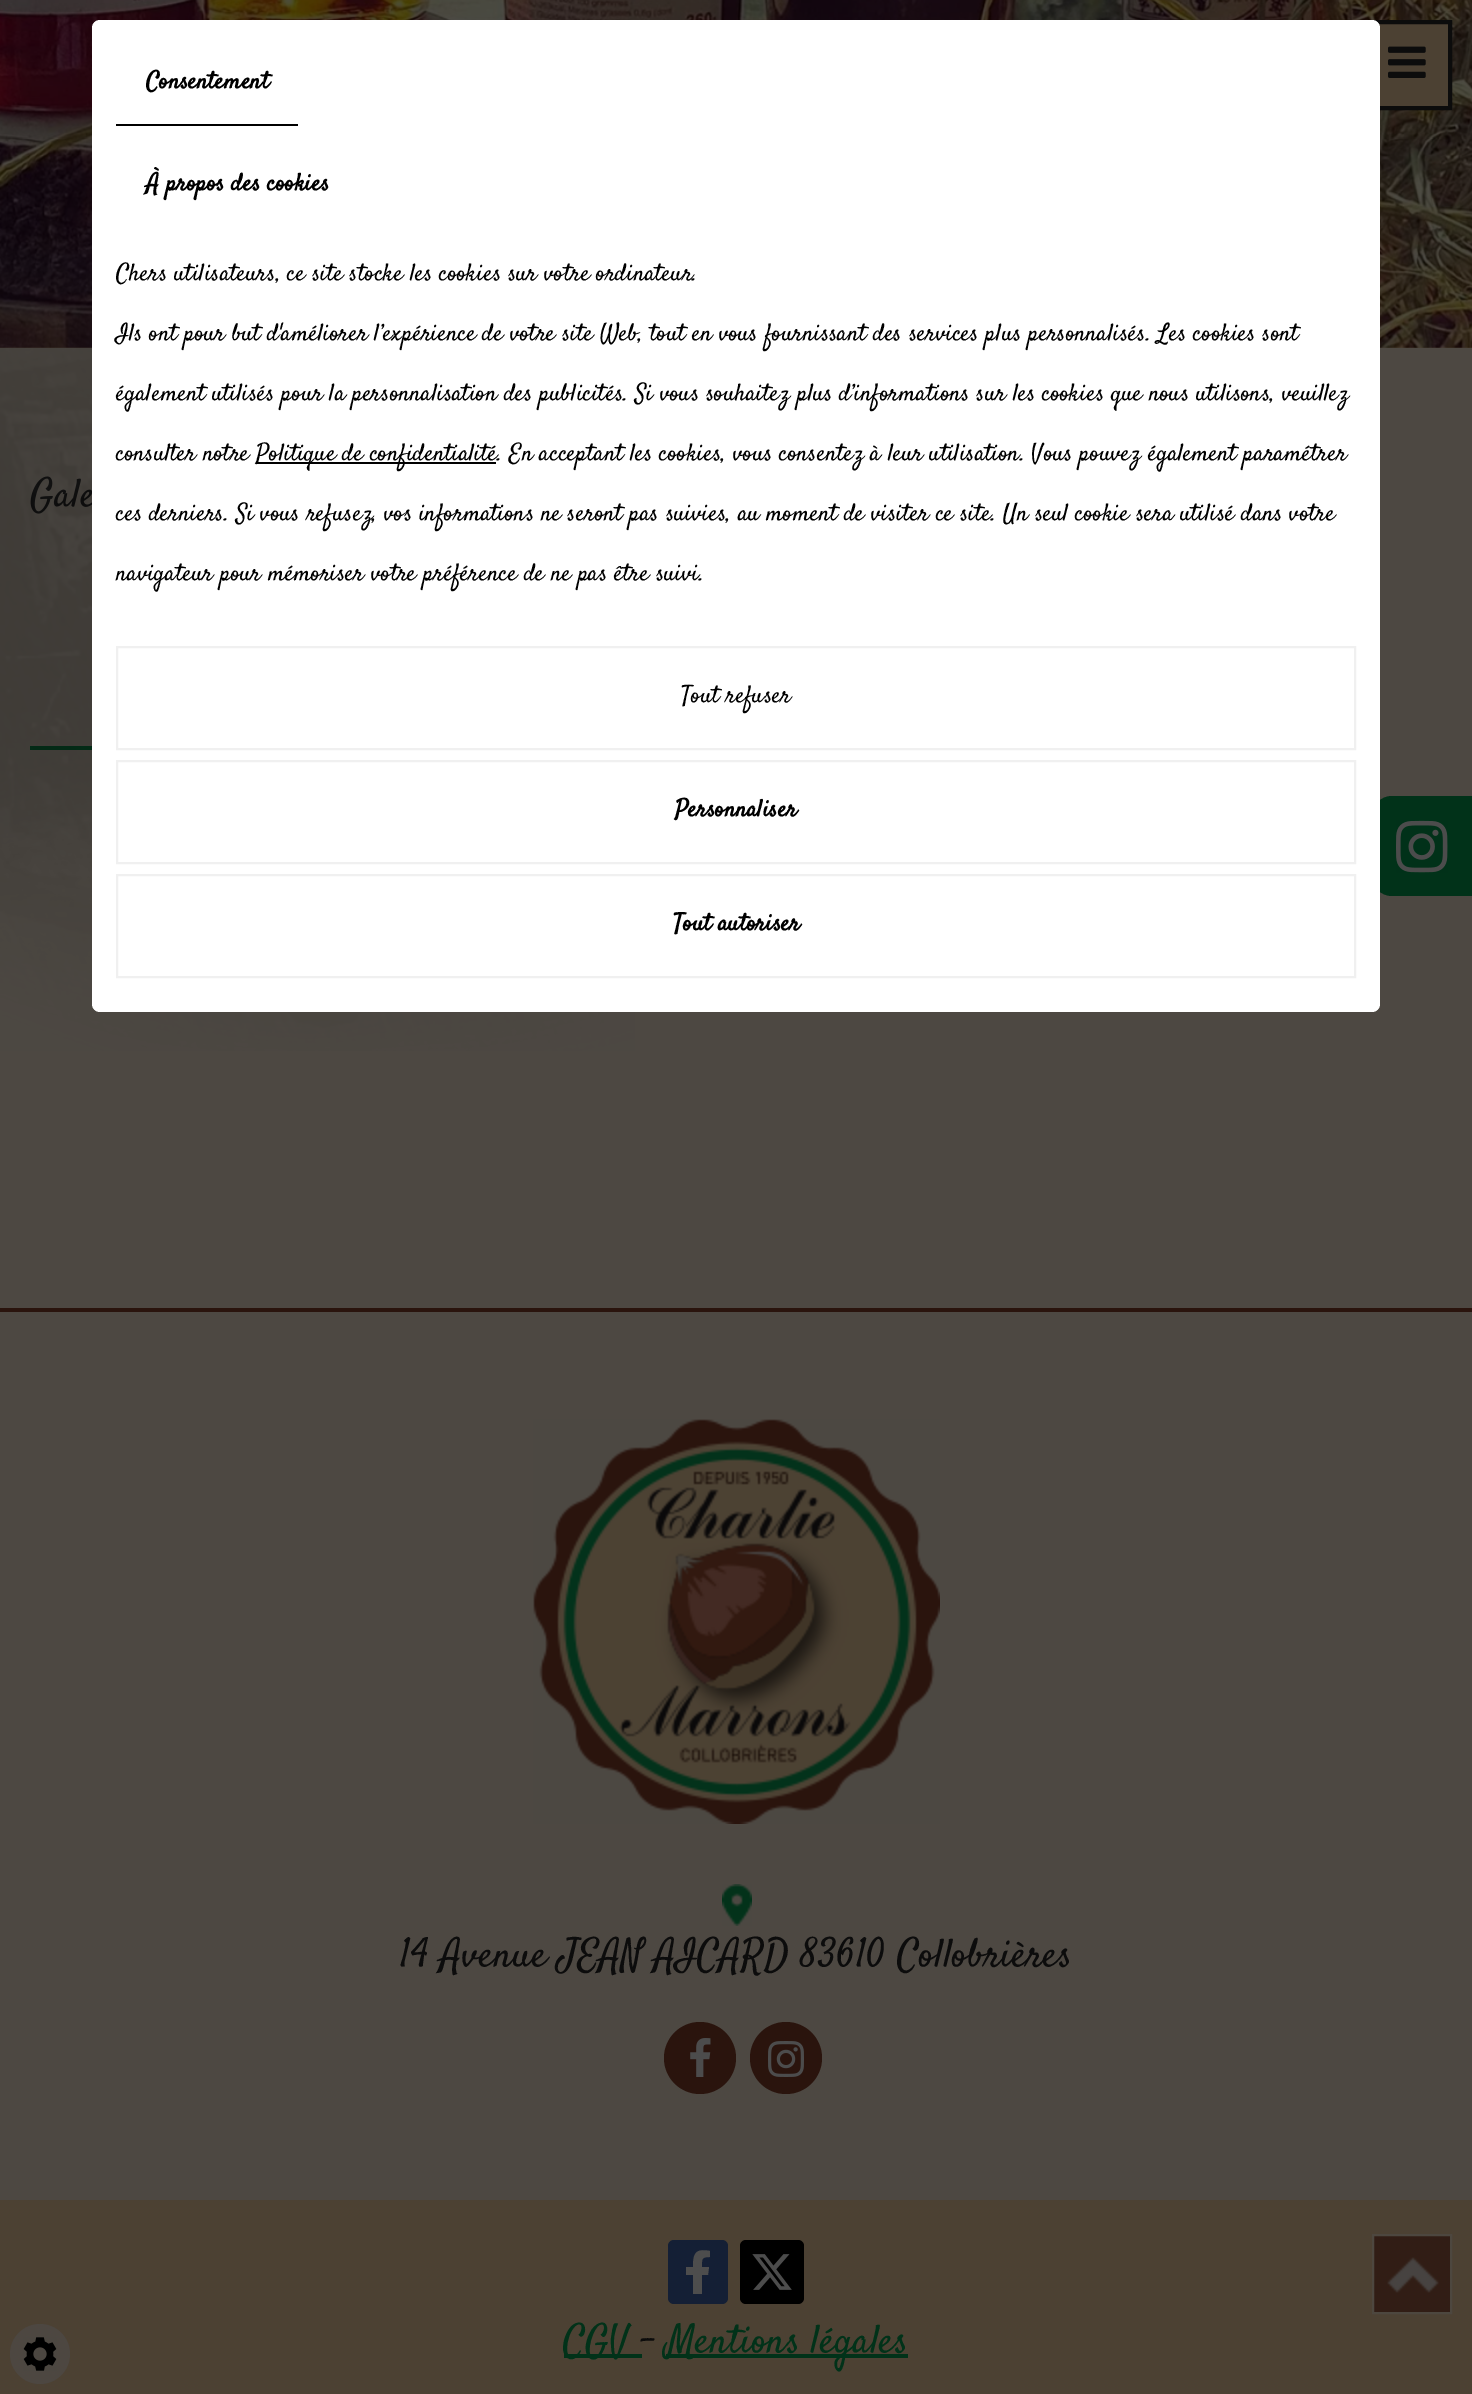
%!PS
<< /PageSize [1472 2394] >> setpagedevice
/mt/moveto load def
/li/lineto load def
/ct/curveto load def
/cp/closepath load def
/fl/fill load def
/lw/setlinewidth load def
/co { dup -16 bitshift 255 div exch dup -8 bitshift 255 and 255 div exch 255 and 255 div setrgbcolor } def
/fn { [ exch dup neg 0 0 3 -1 roll 0 0 ] selectfont } def
/tx { co fn moveto show } def
/bx { co rectfill } def
/ci { newpath 0 360 arc closepath } def
/rr { 5 dict begin { /r /h /w /y /x } { exch def } forall
  x r add y moveto x w add y 2 copy h add r arct x w add y h add x 1 index r arct
  x y h add x y r arct x y 2 copy exch w add exch r arct closepath end } def
/im { 5 dict begin { /h /w /y /x /name } { exch def } forall
  gsave x y translate w h scale
  w h 8 [w 0 0 h 0 0] name (r) file false 3 colorimage grestore end } def
0 2394 translate 1 -1 scale
4 setmiterlimit
0 0 1472 2394 16#4D4842 bx
(media/1.raw) 0 0 1472 348 im
16#013219 co
1392 796 mt 1472 796 li 1472 896 li 1392 896 li 1381 896 1372 887 1372 876 ct 1372 816 li 1372 805 1381 796 1392 796 ct cp fl
(media/2.raw) 1396 820 52 53 im
30 746 62 4 16#013219 bx
1378 24 70 82 16#4C4133 bx
16#0C0C0C co
4 lw
1364 22 86 86 rectstroke
(media/4.raw) 1388 46 38 32 im
0 1308 1472 4 16#2A140D bx
(media/5.raw) 533 1419 407 405 im
(media/6.raw) 722 1884 30 42 im
700 2058 36 ci fl
(media/7.raw) 690 2038 21 39 im
786 2058 36 ci fl
(media/8.raw) 768 2041 36 36 im
0 2200 1472 194 16#4C4133 bx
1374 2236 76 76 16#311D15 bx
(media/9.raw) 1387 2257 52 36 im
16#4D473F co
2 lw
1373 2235 78 78 rectstroke
16#4D4741 co
40 2354 30 ci fl
(media/10.raw) 23 2337 34 34 im
16#141F35 co
668 2240 60 64 6 rr fl
16#4D4D4D co
708 2275 mt 709 2267 li 702 2267 li 702 2259 701 2257 710 2257 ct 710 2251 li 695 2248 693 2254 693 2267 ct 686 2267 li 686 2275 li 693 2275 li 693 2294 li 702 2294 li 702 2275 li cp fl
16#000000 co
740 2240 64 64 6 rr fl
(media/11.raw) 752 2254 40 36 im
564 2354 78 4 16#013219 bx
666 2354 242 4 16#013219 bx
(Gale) 30 506 /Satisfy-Regular 40 16#0C0C0C tx
(media/3.raw) 0 239 635 812 im
16#FFFFFF co
92 20 1288 992 8 rr fl
116 124 182 2 16#000000 bx
(Consentement) 146 88 /Satisfy-Bold 24 16#000000 tx
(À propos des cookies) 146 190 /Satisfy-Bold 24 16#000000 tx
(Chers utilisateurs, ce site stocke les cookies sur votre ordinateur.) 116 280 /Satisfy-Regular 24 16#000000 tx
(Ils ont pour but d'améliorer l’expérience de votre site Web, tout en vous fournissant des services plus personnalisés. Les cookies sont) 116 340 /Satisfy-Regular 24 16#000000 tx
(également utilisés pour la personnalisation des publicités. Si vous souhaitez plus d’informations sur les cookies que nous utilisons, veuillez) 116 400 /Satisfy-Regular 24 16#000000 tx
(consulter notre) 116 460 /Satisfy-Regular 24 16#000000 tx
256 462 240 2 16#000000 bx
(Politique de confidentialité. En acceptant les cookies, vous consentez à leur utilisation. Vous pouvez également paramétrer) 256 460 /Satisfy-Regular 24 16#000000 tx
(ces derniers. Si vous refusez, vos informations ne seront pas suivies, au moment de visiter ce site. Un seul cookie sera utilisé dans votre) 116 520 /Satisfy-Regular 24 16#000000 tx
(navigateur pour mémoriser votre préférence de ne pas être suivi.) 116 580 /Satisfy-Regular 24 16#000000 tx
16#F0F0F0 co
117 647 1238 102 rectstroke
(Tout refuser) 681 702 /Satisfy-Regular 24 16#000000 tx
16#F0F0F0 co
117 761 1238 102 rectstroke
(Personnaliser) 675 816 /Satisfy-Bold 24 16#000000 tx
16#F0F0F0 co
117 875 1238 102 rectstroke
(Tout autoriser) 673 930 /Satisfy-Bold 24 16#000000 tx
(14 Avenue JEAN AICARD 83610 Collobrières) 400 1966 /Satisfy-Regular 40 16#0C0C0C tx
(CGV) 563 2352 /Satisfy-Regular 40 16#013219 tx
(-) 641 2352 /Satisfy-Regular 40 16#0C0C0C tx
(Mentions légales) 666 2352 /Satisfy-Regular 40 16#013219 tx
showpage
